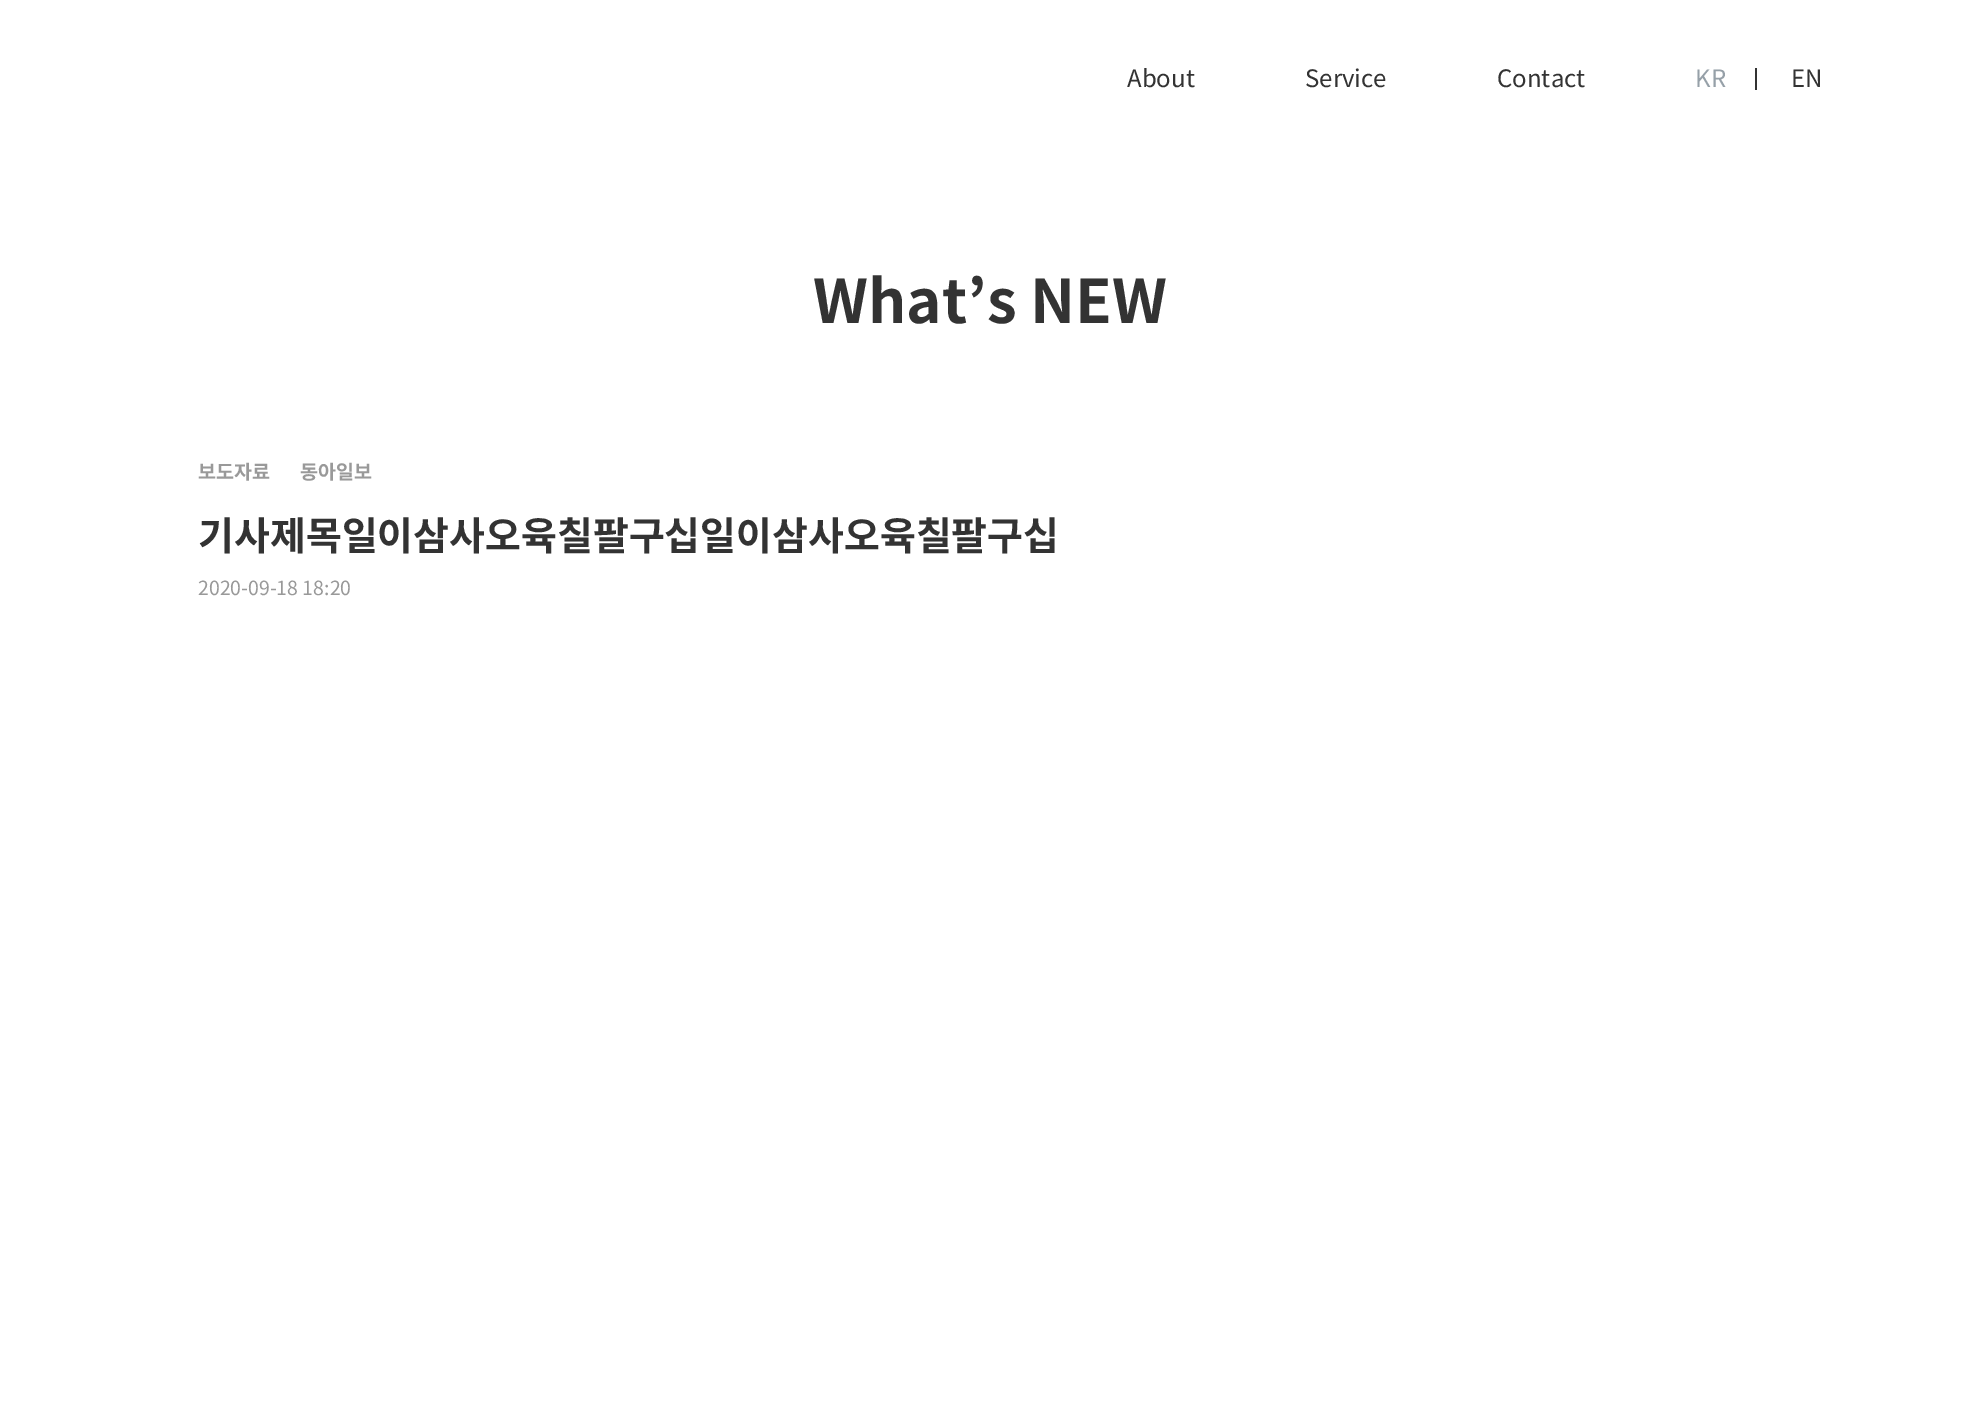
%!PS
<< /PageSize [1980 1403] >> setpagedevice
/co { dup -16 bitshift 255 div exch dup -8 bitshift 255 and 255 div exch 255 and 255 div setrgbcolor } def
/fn { [ exch dup neg 0 0 3 -1 roll 0 0 ] selectfont } def
/tx { co fn moveto show } def
/bx { co rectfill } def
0 1403 translate 1 -1 scale
4 setmiterlimit
0 0 1980 1403 16#FFFFFF bx
1755 68 2 22 16#333333 bx
(About) 1127 87 /NotoSansKR-Regular 24 16#333333 tx
(Service) 1305 87 /NotoSansKR-Regular 24 16#333333 tx
(Contact) 1497 87 /NotoSansKR-Regular 24 16#333333 tx
(KR) 1695 87 /NotoSansKR-Regular 24 16#96A0A8 tx
(EN) 1791 87 /NotoSansKR-Regular 24 16#333333 tx
(What’s NEW) 813 323 /NotoSansKR-Bold 60 16#333333 tx
(보도자료) 198 479 /NotoSansKR-Bold 19.5 16#999999 tx
(동아일보) 300 479 /NotoSansKR-Bold 19.5 16#999999 tx
(기사제목일이삼사오육칠팔구십일이삼사오육칠팔구십) 198 550 /NotoSansKR-Bold 39 16#333333 tx
(2020-09-18 18:20) 198 595 /NotoSansKR-Regular 19.5 16#999999 tx
showpage
